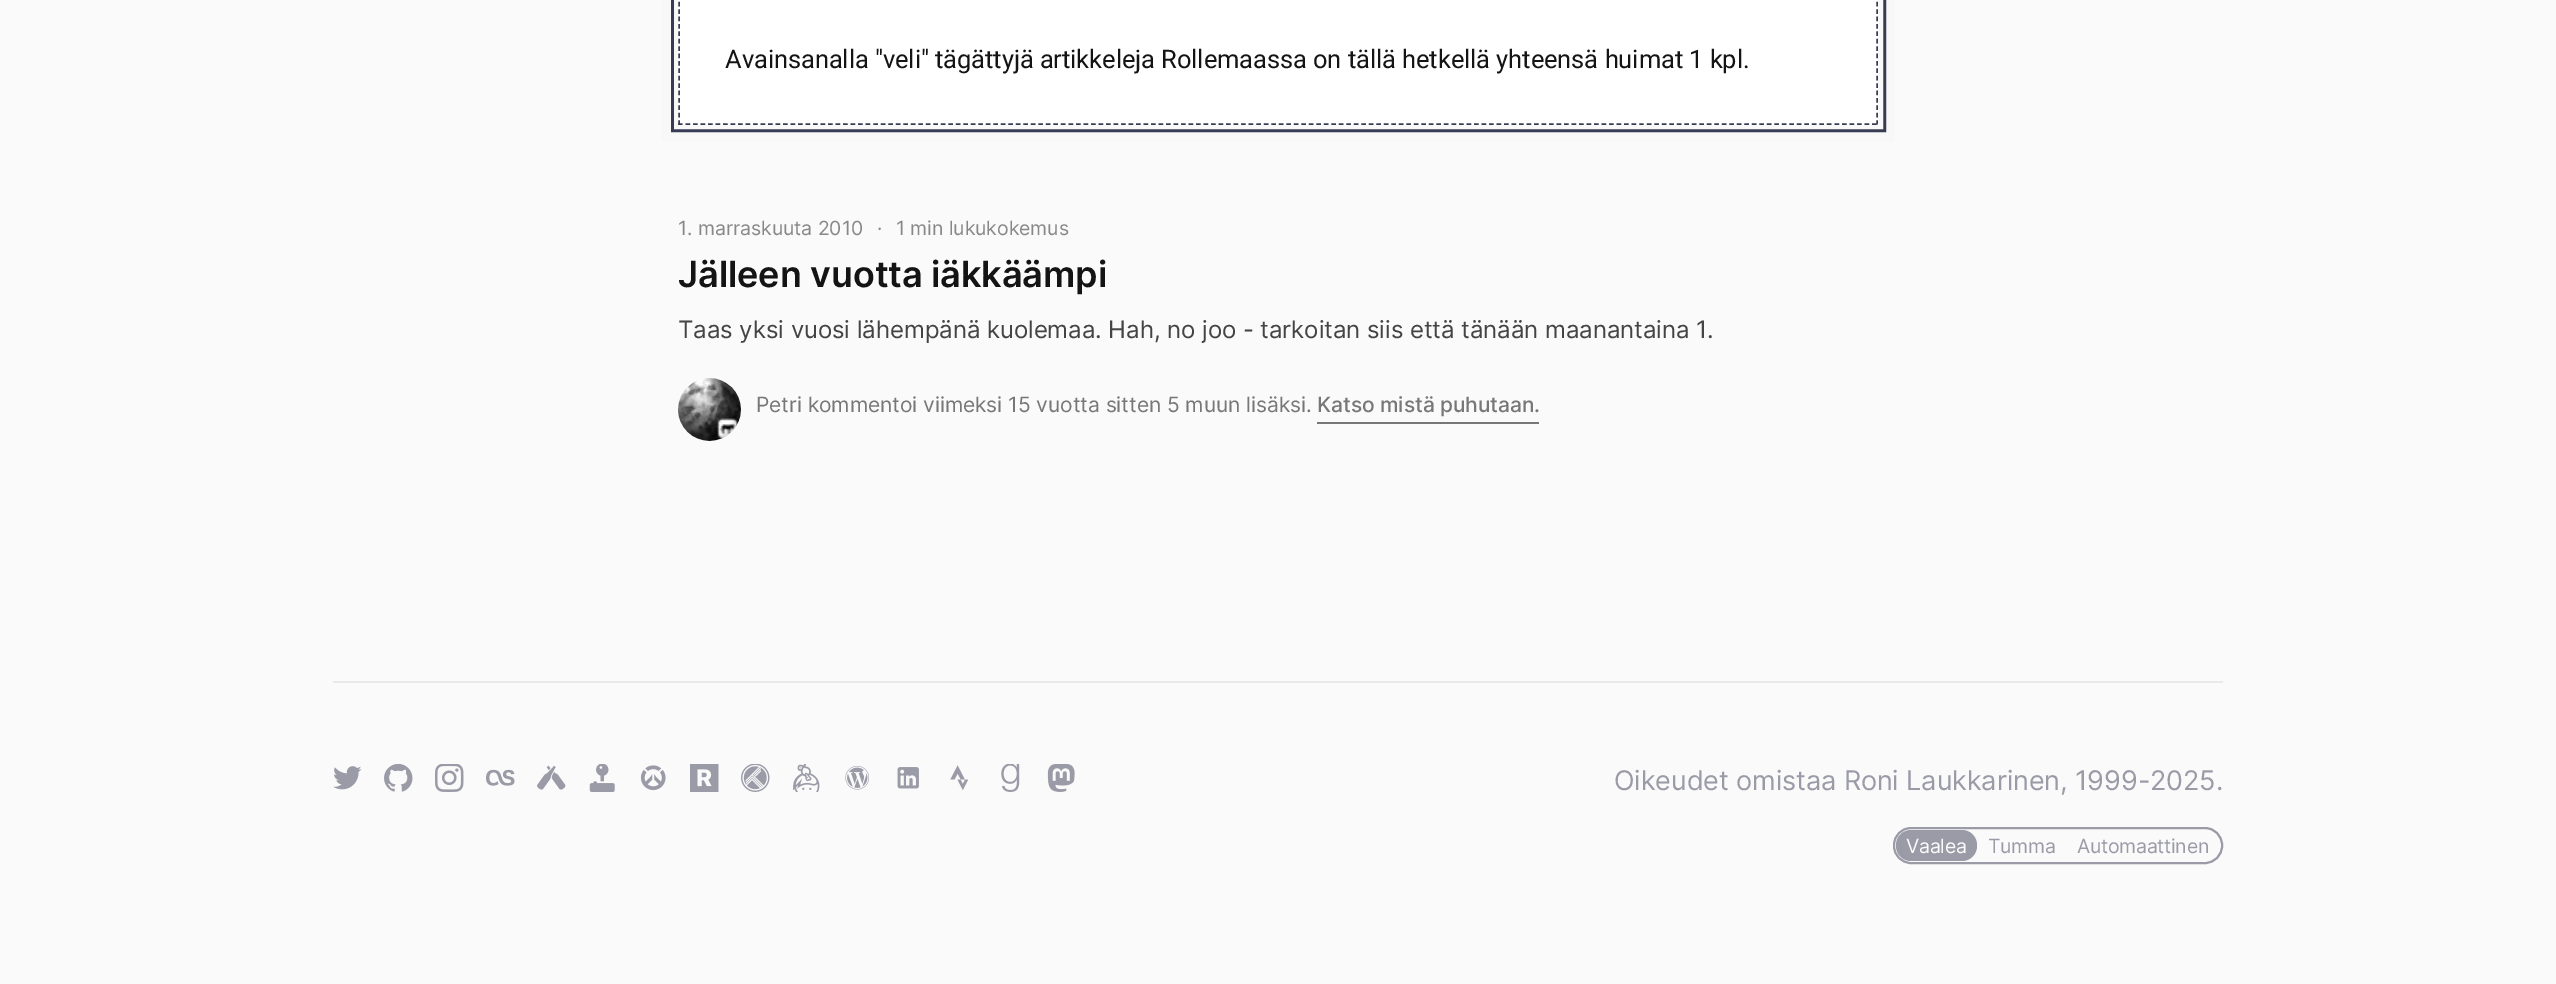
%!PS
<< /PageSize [2556 984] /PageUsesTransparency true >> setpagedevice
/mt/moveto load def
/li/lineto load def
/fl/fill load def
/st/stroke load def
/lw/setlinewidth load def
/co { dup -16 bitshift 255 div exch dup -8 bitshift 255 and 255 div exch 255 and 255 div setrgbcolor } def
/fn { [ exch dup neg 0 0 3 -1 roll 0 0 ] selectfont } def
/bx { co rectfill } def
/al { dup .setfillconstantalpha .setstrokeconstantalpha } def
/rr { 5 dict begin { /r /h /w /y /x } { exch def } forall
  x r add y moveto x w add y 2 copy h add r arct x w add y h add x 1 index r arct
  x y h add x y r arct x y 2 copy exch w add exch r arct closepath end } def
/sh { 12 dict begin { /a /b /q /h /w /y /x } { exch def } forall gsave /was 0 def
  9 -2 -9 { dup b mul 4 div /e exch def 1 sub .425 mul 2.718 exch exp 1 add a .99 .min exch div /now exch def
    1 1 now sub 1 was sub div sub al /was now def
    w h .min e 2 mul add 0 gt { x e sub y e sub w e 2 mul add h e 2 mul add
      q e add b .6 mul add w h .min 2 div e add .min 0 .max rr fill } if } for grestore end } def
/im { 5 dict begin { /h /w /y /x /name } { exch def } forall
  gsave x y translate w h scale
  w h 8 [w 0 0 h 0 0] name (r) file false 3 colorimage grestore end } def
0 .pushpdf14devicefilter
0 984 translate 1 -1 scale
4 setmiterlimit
0 0 2556 984 16#FAFAFA bx
16#EEEEEE co
663 -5 1230 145 0 1.5 1 sh
16#F8F8F8 co
15 lw
670.5 -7.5 1215 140 rectstroke
16#373B54 co
8 lw
675 -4 1207 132 rectstroke
16#F8F8F8 co
5 lw
676.5 -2.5 1204 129 rectstroke
678 0 1200 125 16#FFFFFF bx
16#373B54 co
1.5 lw
[4.5 2.9] 0 setdash
1877 -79.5 mt 1877 124.5 li st
[4.5 3.01] 0 setdash
678 124 mt 1878 124 li st
[4.5 2.9] 0 setdash
679 -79.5 mt 679 124.5 li st
(media/1.raw) 678 378 63 63 im
1317 422 222 2 16#777777 bx
333 681 1890 2 16#E9E9EC bx
(media/2.raw) 333 766 29 24 im
(media/3.raw) 384 764 29 28 im
(media/4.raw) 435 764 29 28 im
(media/5.raw) 486 769 29 17 im
(media/6.raw) 537 765 29 25 im
(media/7.raw) 589 764 26 28 im
(media/8.raw) 640 765 26 26 im
(media/9.raw) 690 764 29 28 im
(media/10.raw) 741 764 29 28 im
(media/11.raw) 793 764 27 28 im
(media/12.raw) 845 765 25 25 im
(media/13.raw) 897 767 22 22 im
(media/14.raw) 950 765 19 25 im
(media/15.raw) 1001 764 19 28 im
(media/16.raw) 1047 764 28 28 im
16#9B9BA8 co
2 lw
[] 0 setdash
1894 828 328 35 17 rr st
1896 830 81 31 15 rr fl
/Roboto-Regular 25.5 fn
16#141414 co
725 68 mt -.08 0 (Avainsanalla "veli" tägättyjä artikkeleja Rollemaassa on tällä hetkellä yhteensä huimat 1 kpl.) ashow
/Inter-Regular 19.5 fn
16#888888 co
678 235 mt -.05 0 (1. marraskuuta 2010) ashow
877 235 mt -.05 0 (·) ashow
896 235 mt -.05 0 (1 min lukukokemus) ashow
/Inter-SemiBold 36 fn
16#141414 co
678 287 mt -.1 0 (Jälleen vuotta iäkkäämpi) ashow
/Inter-Regular 24 fn
16#444444 co
678 338 mt -.07 0 (Taas yksi vuosi lähempänä kuolemaa. Hah, no joo - tarkoitan siis että tänään maanantaina 1.) ashow
/Inter-Regular 21 fn
16#777777 co
756 412 mt -.05 0 (Petri kommentoi viimeksi 15 vuotta sitten 5 muun lisäksi.) ashow
/Inter-Medium 21 fn
1317 412 mt -.05 0 (Katso mistä puhutaan.) ashow
/Inter-Regular 27 fn
16#9B9BA8 co
1614 790 mt -.08 0 (Oikeudet omistaa Roni Laukkarinen, 1999-2025.) ashow
/Inter-Regular 19.5 fn
16#FAFAFA co
1906 853 mt -.25 0 (Vaalea) ashow
16#9B9BA8 co
1988 853 mt -.25 0 (Tumma) ashow
2077 853 mt -.25 0 (Automaattinen) ashow
.poppdf14devicefilter showpage
